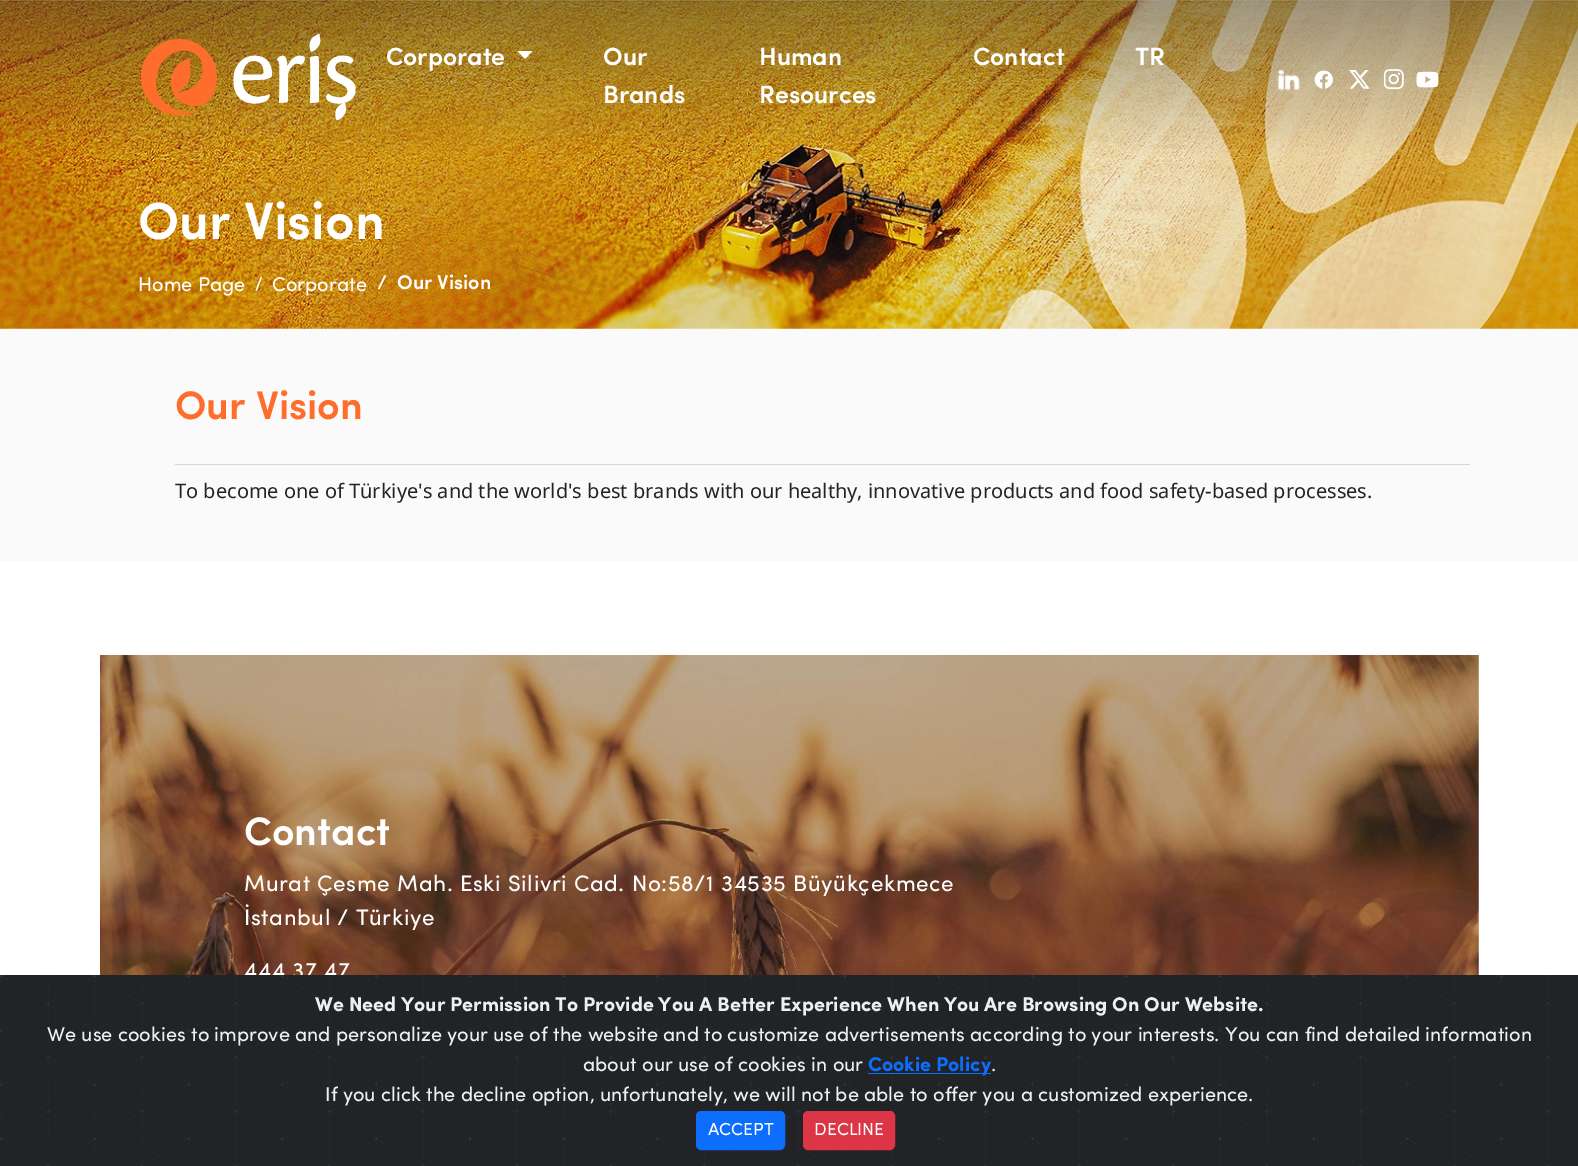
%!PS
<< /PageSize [1578 1166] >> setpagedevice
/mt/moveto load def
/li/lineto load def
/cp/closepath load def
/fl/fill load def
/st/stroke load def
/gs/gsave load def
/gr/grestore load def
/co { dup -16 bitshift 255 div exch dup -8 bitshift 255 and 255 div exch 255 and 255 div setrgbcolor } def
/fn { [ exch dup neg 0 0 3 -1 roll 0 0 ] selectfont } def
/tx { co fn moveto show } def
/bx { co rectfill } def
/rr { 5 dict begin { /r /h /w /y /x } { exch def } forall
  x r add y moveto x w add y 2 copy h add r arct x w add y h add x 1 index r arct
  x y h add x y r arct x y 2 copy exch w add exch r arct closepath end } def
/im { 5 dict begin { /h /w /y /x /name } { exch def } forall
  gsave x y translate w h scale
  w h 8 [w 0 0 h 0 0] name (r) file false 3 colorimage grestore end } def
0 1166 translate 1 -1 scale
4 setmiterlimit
0 0 1578 1166 16#FFFFFF bx
(media/7.raw) 0 0 1578 329 im
(media/1.raw) 141 34 215 87 im
517.5 51 mt 532.5 51 li 525 59 li cp fl
(media/2.raw) 1277 69 23 22 im
(media/3.raw) 1314 70 19 19 im
(media/4.raw) 1349 70 21 19 im
(media/5.raw) 1384 69 20 21 im
(media/6.raw) 1416 71 23 17 im
0 329 1578 232 16#FAFAFA bx
175 464 1295 1 16#D8D8D8 bx
(media/8.raw) 100 655 1379 320 im
1576 975 2 191 16#212327 bx
(Corporate) 386 65 /Sofia-SemiBold 25 16#FFFFFF tx
(Our) 603 65 /Sofia-SemiBold 25 16#FFFFFF tx
(Brands) 603 103 /Sofia-SemiBold 25 16#FFFFFF tx
(Human) 759 65 /Sofia-SemiBold 25 16#FFFFFF tx
(Resources) 759 103 /Sofia-SemiBold 25 16#FFFFFF tx
(Contact) 973 65 /Sofia-SemiBold 25 16#FFFFFF tx
(TR) 1135 65 /Sofia-SemiBold 25 16#FFFFFF tx
(Our Vision) 138 239 /Sofia-SemiBold 52.5 16#FFFFFF tx
(Home Page) 138 291 /Sofia-Regular 20 16#FFFFFF tx
(/) 255 291 /NotoSans-Regular 20 16#FFFFFF tx
(Corporate) 272 291 /Sofia-Regular 20 16#FFFFFF tx
(/) 377 289 /Sofia-SemiBold 20 16#FFFFFF tx
(Our Vision) 397 289 /Sofia-SemiBold 20 16#FFFFFF tx
(Our Vision) 175 419 /Sofia-SemiBold 40 16#FF6D2D tx
(To become one of Türkiye's and the world's best brands with our healthy, innovative products and food safety-based processes.) 175 498 /NotoSans-Regular 20 16#212529 tx
(Contact) 244 845 /Sofia-SemiBold 40 16#FFFFFF tx
/Sofia-Regular 22.5 fn
244 891 mt .62 0 (Murat Çesme Mah. Eski Silivri Cad. No:58/1 34535 Büyükçekmece) ashow
244 925 mt .62 0 (İstanbul / Türkiye) ashow
244 978 mt .62 0 (444 37 47) ashow
(media/9.raw) 0 975 1576 191 im
(We Need Your Permission To Provide You A Better Experience When You Are Browsing On Our Website.) 315 1011 /Sofia-Bold 20 16#ECF0F1 tx
(We use cookies to improve and personalize your use of the website and to customize advertisements according to your interests. You can find detailed information) 47 1041 /Sofia-Regular 20 16#ECF0F1 tx
(about our use of cookies in our) 583 1071 /Sofia-Regular 20 16#ECF0F1 tx
868 1073 123 1 16#0D6EFD bx
(Cookie Policy) 868 1071 /Sofia-Bold 20 16#0D6EFD tx
(.) 991 1071 /Sofia-Regular 20 16#ECF0F1 tx
(If you click the decline option, unfortunately, we will not be able to offer you a customized experience.) 325 1101 /Sofia-Regular 20 16#ECF0F1 tx
16#0D6EFD co
696.5 1111.5 88 38 4.5 rr gs fl gr
st
(ACCEPT) 708 1135 /Sofia-Regular 17.5 16#FFFFFF tx
16#DC3545 co
803.5 1111.5 91 38 4.5 rr gs fl gr
st
(DECLINE) 814 1135 /Sofia-Regular 17.5 16#FFFFFF tx
showpage
